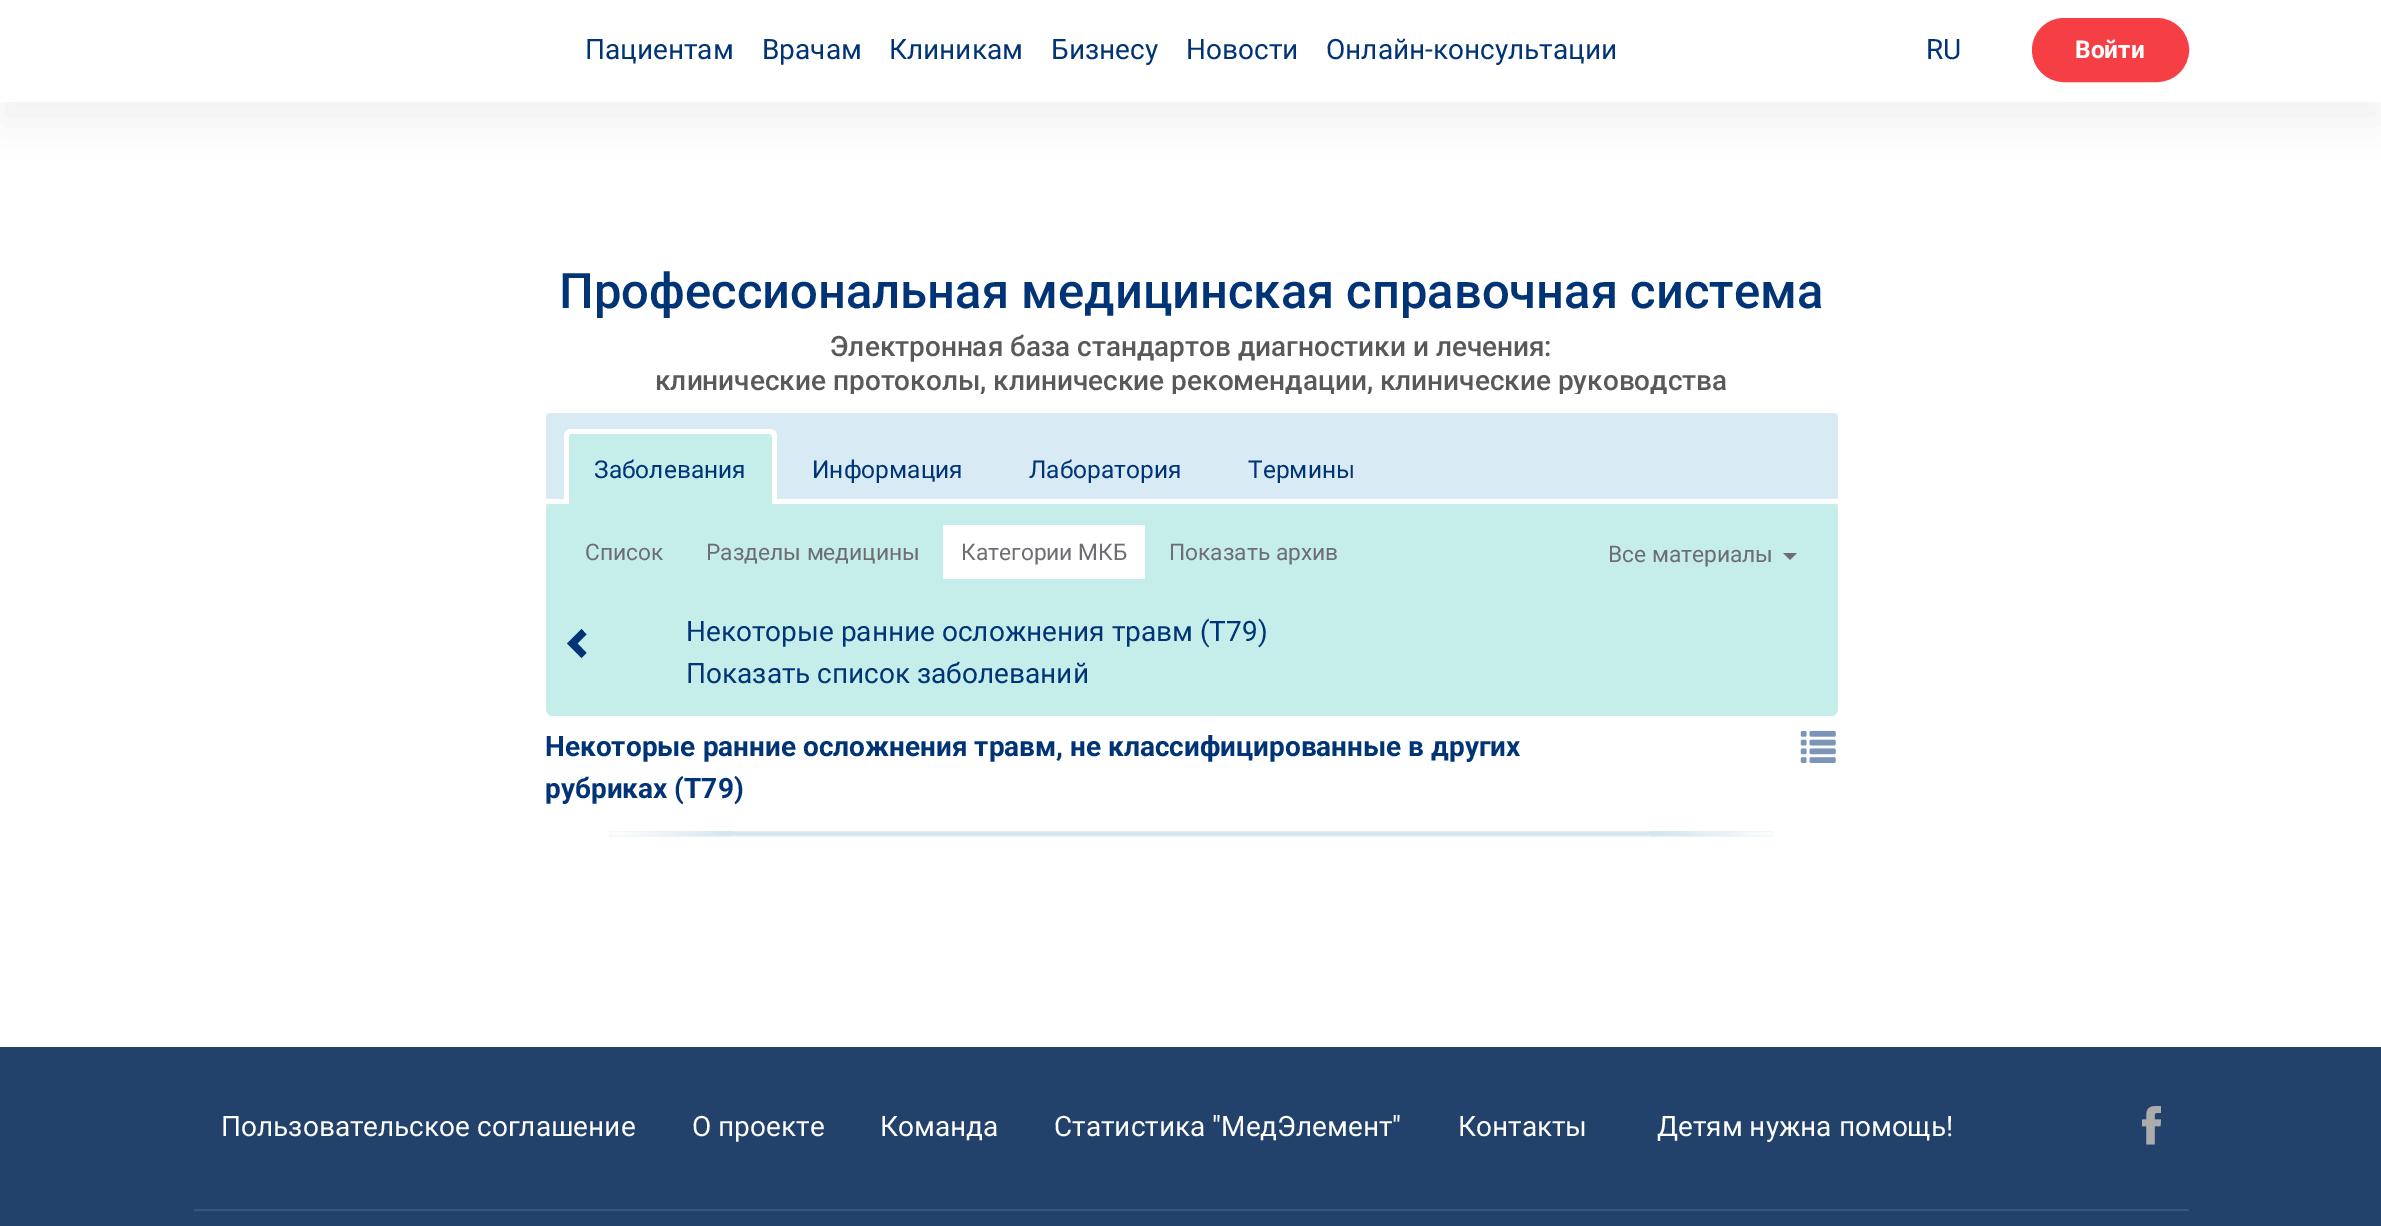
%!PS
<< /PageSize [2381 1226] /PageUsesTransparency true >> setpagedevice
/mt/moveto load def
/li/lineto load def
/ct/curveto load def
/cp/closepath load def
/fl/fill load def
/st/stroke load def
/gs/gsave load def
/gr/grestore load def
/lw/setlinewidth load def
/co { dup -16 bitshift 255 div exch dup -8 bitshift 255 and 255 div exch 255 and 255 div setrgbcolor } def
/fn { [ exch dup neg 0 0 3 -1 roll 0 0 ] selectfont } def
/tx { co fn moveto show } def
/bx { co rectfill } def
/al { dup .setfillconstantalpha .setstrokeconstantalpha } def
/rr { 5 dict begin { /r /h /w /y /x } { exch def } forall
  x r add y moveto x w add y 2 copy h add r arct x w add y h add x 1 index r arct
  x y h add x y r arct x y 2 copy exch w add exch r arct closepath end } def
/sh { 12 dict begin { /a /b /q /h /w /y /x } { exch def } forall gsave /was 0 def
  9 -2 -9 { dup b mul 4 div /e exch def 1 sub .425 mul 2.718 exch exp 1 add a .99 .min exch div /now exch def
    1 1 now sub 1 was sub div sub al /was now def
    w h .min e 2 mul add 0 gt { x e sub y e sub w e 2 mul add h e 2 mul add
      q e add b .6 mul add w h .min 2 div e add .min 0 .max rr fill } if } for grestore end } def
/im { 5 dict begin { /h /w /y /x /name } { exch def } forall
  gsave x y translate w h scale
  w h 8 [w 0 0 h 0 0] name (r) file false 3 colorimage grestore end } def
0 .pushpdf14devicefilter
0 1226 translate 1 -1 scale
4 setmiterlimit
0 0 2381 1226 16#FFFFFF bx
gs
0 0 mt 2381 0 li 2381 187 li 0 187 li cp 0 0 mt 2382 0 li 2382 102 li 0 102 li cp eoclip newpath
16#000000 co
0 21 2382 102 0 21 .05 sh
gr
0.92 al
1 101 2380 1 16#FFFFFF bx
1 al
16#F63F45 co
2033 19 155 62 31 rr gs fl gr
2 lw
st
16#D8EAF4 co
546 411 1292 305 7 rr fl
546 499 1292 5 16#FFFFFF bx
16#C5EDEA co
571 429 mt 770 429 li 774 429 777 432 777 436 ct 777 504 li 564 504 li 564 436 li 564 432 567 429 571 429 ct cp fl
16#FFFFFF co
570 429 mt 770 429 li 774 429 777 432 777 436 ct 777 504 li 564 504 li 564 436 li 564 432 567 429 570 429 ct cp 570 434 mt 770 434 li 771 434 772 435 772 436 ct 772 504 li 569 504 li 569 435 li cp eofill
16#C5EDEA co
546 504 1292 212 7 rr fl
943 525 202 54 16#FFFFFF bx
16#6D6E71 co
1783 553 mt 1797 553 li 1790 560 li cp fl
16#003476 co
586.5 634.5 mt 577.5 643.5 li 586.5 653 li 581.5 658 li 567 643.5 li 581.5 629 li cp fl
(media/1.raw) 1800 730 36 33 im
(media/2.raw) 609 831 1164 6 im
0 1047 2381 179 16#22426B bx
(media/3.raw) 2142 1106 19 39 im
194 1209 1995 2 16#38557A bx
(Пациентам) 585 59 /Roboto-Regular 28 16#003476 tx
(Врачам) 762 59 /Roboto-Regular 28 16#003476 tx
(Клиникам) 889 59 /Roboto-Regular 28 16#003476 tx
(Бизнесу) 1051 59 /Roboto-Regular 28 16#003476 tx
(Новости) 1186 59 /Roboto-Regular 28 16#003476 tx
(Онлайн-консультации) 1326 59 /Roboto-Regular 28 16#003476 tx
(RU) 1926 59 /Roboto-Regular 28 16#003476 tx
(Войти) 2075 58 /Roboto-Bold 24.5 16#FFFFFF tx
(Профессиональная медицинская справочная система) 559 308 /Roboto-Medium 49 16#003476 tx
(Электронная база стандартов диагностики и лечения:) 830 356 /Roboto-Medium 28 16#58595B tx
(клинические протоколы, клинические рекомендации, клинические руководства) 655 390 /Roboto-Medium 28 16#58595B tx
16#FFFFFF co
553 394 mt 1831 394 li 1835 394 1838 397 1838 401 ct 1838 413 li 546 413 li 546 401 li 546 397 549 394 553 394 ct cp fl
(Заболевания) 594 478 /Roboto-Regular 24.5 16#003476 tx
(Информация) 812 478 /Roboto-Regular 24.5 16#003476 tx
(Лаборатория) 1029 478 /Roboto-Regular 24.5 16#003476 tx
(Термины) 1248 478 /Roboto-Regular 24.5 16#003476 tx
(Список) 585 560 /Roboto-Regular 22.75 16#6D6E71 tx
(Разделы медицины) 706 560 /Roboto-Regular 22.75 16#6D6E71 tx
(Категории МКБ) 961 560 /Roboto-Regular 22.75 16#6D6E71 tx
(Показать архив) 1169 560 /Roboto-Regular 22.75 16#6D6E71 tx
(Все материалы) 1608 562 /Roboto-Regular 22.75 16#6D6E71 tx
(Некоторые ранние осложнения травм \(T79\)) 686 641 /Roboto-Regular 28 16#003476 tx
(Показать список заболеваний) 686 683 /Roboto-Regular 28 16#003476 tx
(Некоторые ранние осложнения травм, не классифицированные в других) 545 756 /Roboto-Bold 28 16#003476 tx
(рубриках \(T79\)) 545 798 /Roboto-Bold 28 16#003476 tx
(Пользовательское соглашение) 221 1136 /Roboto-Regular 28 16#FFFFFF tx
(О проекте) 692 1136 /Roboto-Regular 28 16#FFFFFF tx
(Команда) 880 1136 /Roboto-Regular 28 16#FFFFFF tx
(Статистика "МедЭлемент") 1054 1136 /Roboto-Regular 28 16#FFFFFF tx
(Контакты) 1458 1136 /Roboto-Regular 28 16#FFFFFF tx
(Детям нужна помощь!) 1657 1136 /Roboto-Regular 28 16#FFFFFF tx
.poppdf14devicefilter showpage
